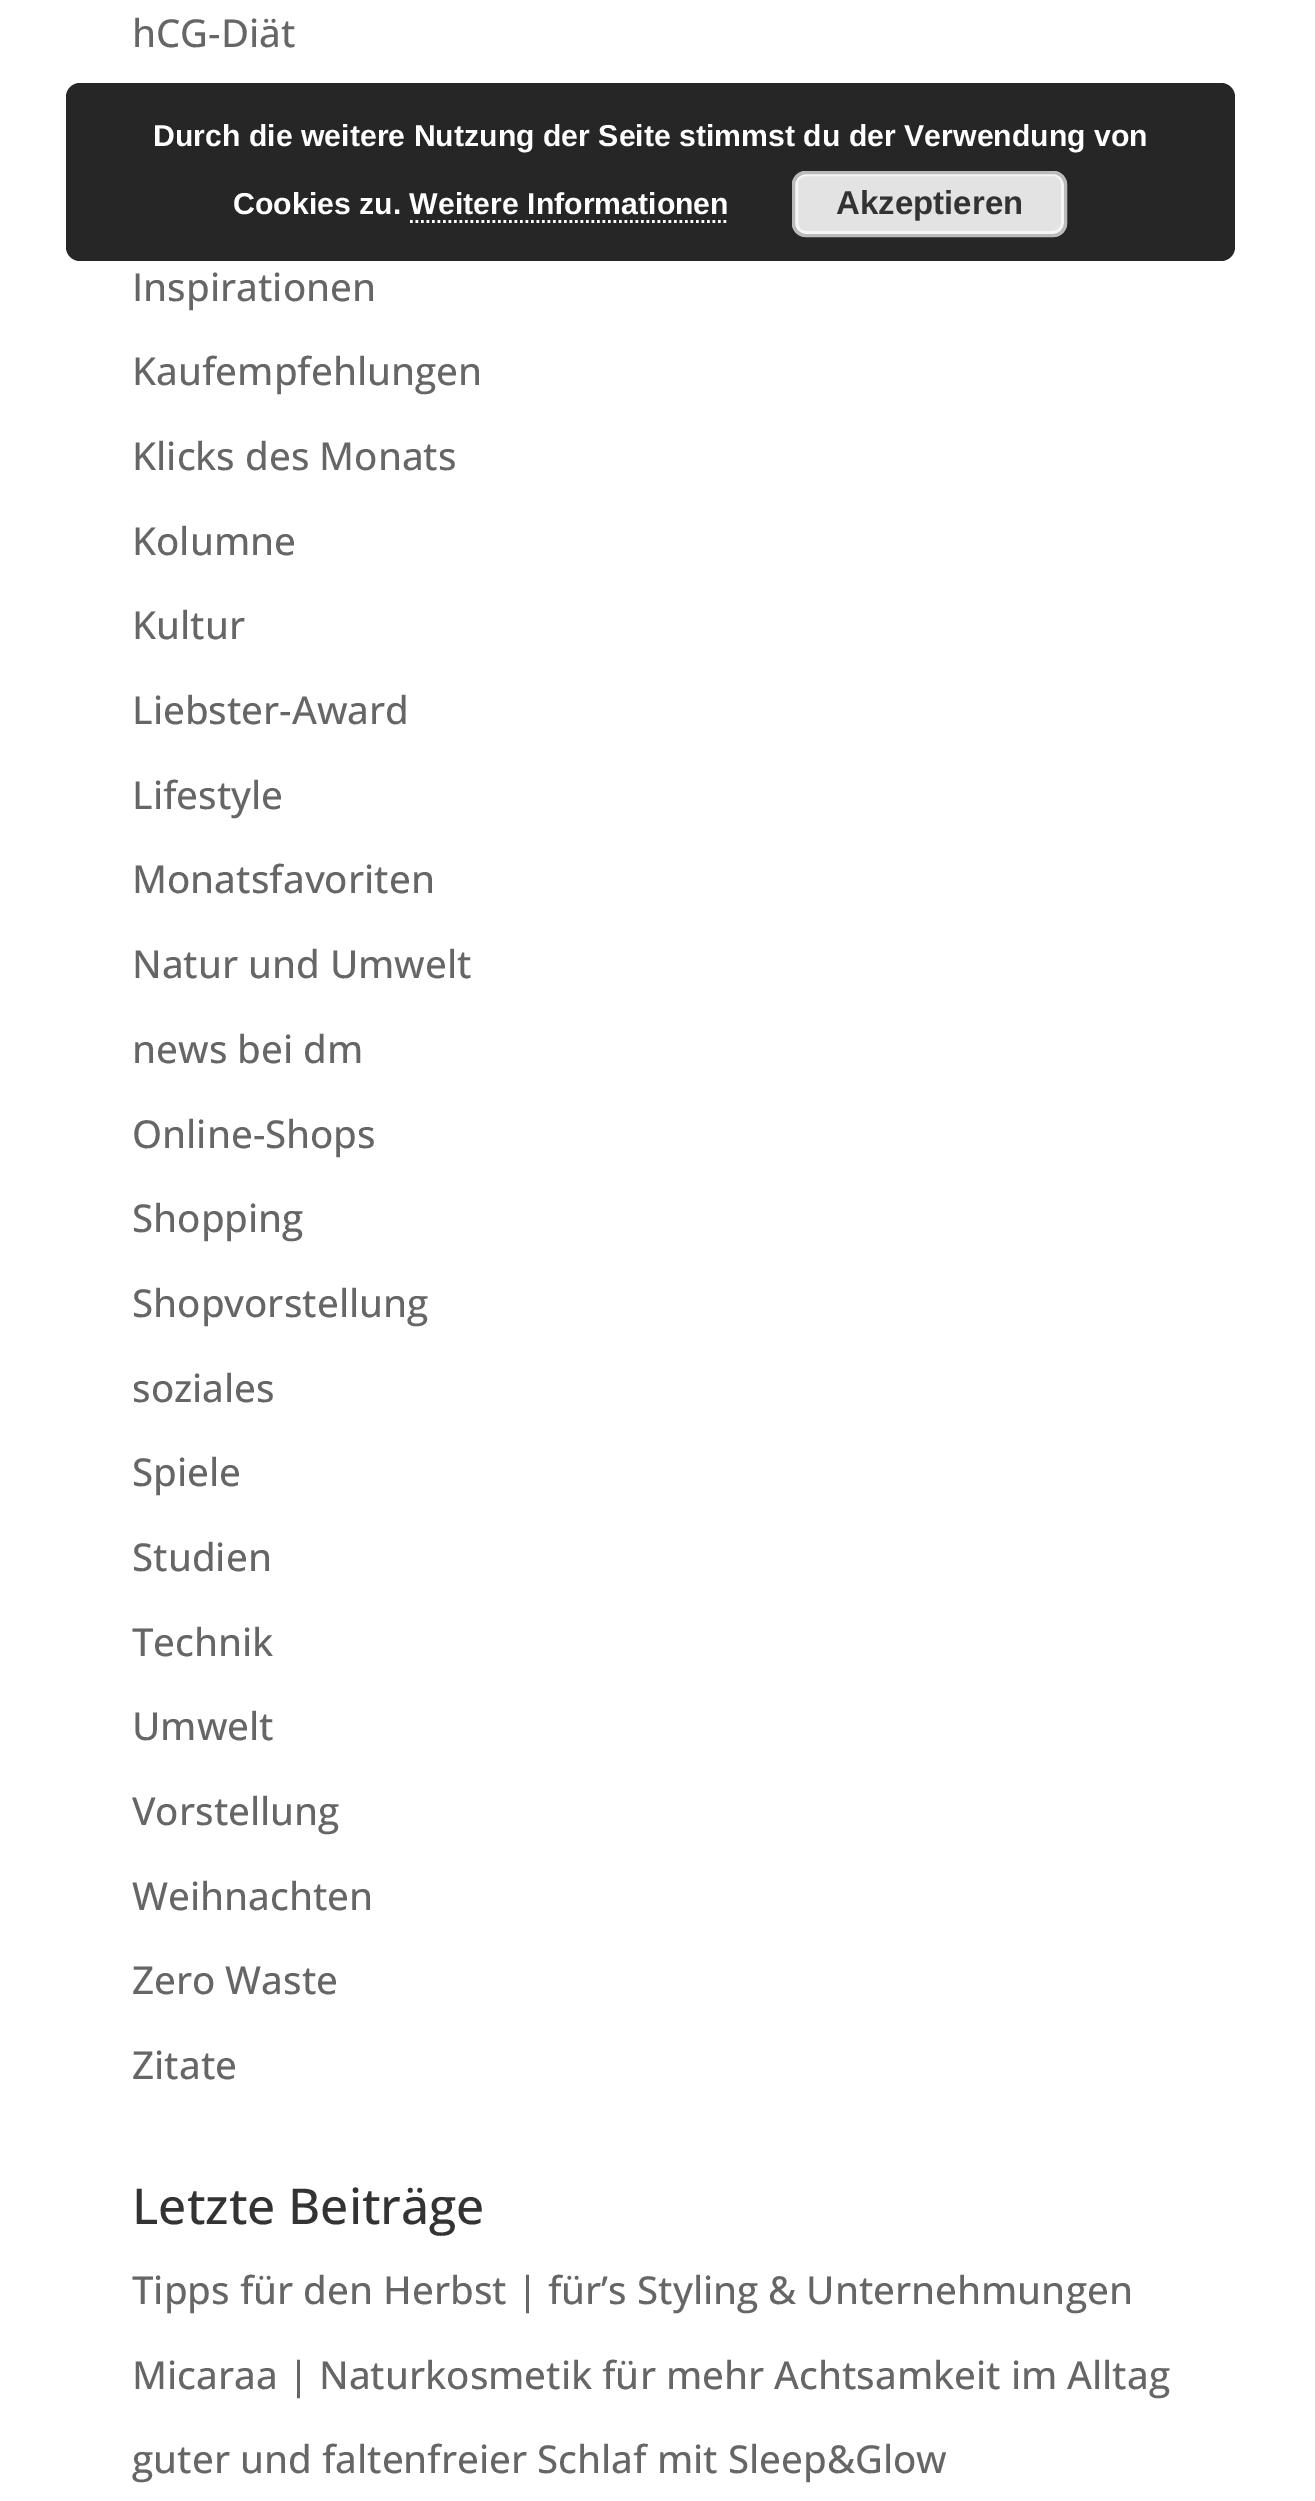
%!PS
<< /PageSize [1315 2501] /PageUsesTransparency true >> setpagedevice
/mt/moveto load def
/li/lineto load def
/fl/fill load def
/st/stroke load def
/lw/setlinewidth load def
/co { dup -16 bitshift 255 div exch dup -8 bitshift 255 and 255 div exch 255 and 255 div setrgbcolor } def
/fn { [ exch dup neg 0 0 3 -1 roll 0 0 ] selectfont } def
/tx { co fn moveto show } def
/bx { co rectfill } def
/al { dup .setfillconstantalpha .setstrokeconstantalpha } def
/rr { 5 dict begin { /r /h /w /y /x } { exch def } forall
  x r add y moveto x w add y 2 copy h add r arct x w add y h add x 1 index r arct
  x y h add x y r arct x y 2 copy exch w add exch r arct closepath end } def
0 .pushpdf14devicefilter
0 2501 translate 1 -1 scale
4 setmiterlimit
0 0 1315 2501 16#FFFFFF bx
0.85 al
16#000000 co
66 83 1169 178 14 rr fl
1 al
16#E3E3E3 co
792 171 275 66 14 rr fl
16#F6F6F6 co
3 lw
796.5 174.5 266 58 9.5 rr st
16#BBBBBB co
793.5 172.5 272 63 12.5 rr st
16#FFFFFF co
2.8 lw
[2.75 2.75] 0 setdash
410 221.5 mt 729 221.5 li st
(hCG-Diät) 132 47 /OpenSans-Medium 38.5 16#666666 tx
(Inspirationen) 132 301 /OpenSans-Medium 38.5 16#666666 tx
(Kaufempfehlungen) 132 385 /OpenSans-Medium 38.5 16#666666 tx
(Klicks des Monats) 132 470 /OpenSans-Medium 38.5 16#666666 tx
(Kolumne) 132 555 /OpenSans-Medium 38.5 16#666666 tx
(Kultur) 132 639 /OpenSans-Medium 38.5 16#666666 tx
(Liebster-Award) 132 724 /OpenSans-Medium 38.5 16#666666 tx
(Lifestyle) 132 809 /OpenSans-Medium 38.5 16#666666 tx
(Monatsfavoriten) 132 893 /OpenSans-Medium 38.5 16#666666 tx
(Natur und Umwelt) 132 978 /OpenSans-Medium 38.5 16#666666 tx
(news bei dm) 132 1063 /OpenSans-Medium 38.5 16#666666 tx
(Online-Shops) 132 1148 /OpenSans-Medium 38.5 16#666666 tx
(Shopping) 132 1232 /OpenSans-Medium 38.5 16#666666 tx
(Shopvorstellung) 132 1317 /OpenSans-Medium 38.5 16#666666 tx
(soziales) 132 1402 /OpenSans-Medium 38.5 16#666666 tx
(Spiele) 132 1486 /OpenSans-Medium 38.5 16#666666 tx
(Studien) 132 1571 /OpenSans-Medium 38.5 16#666666 tx
(Technik) 132 1656 /OpenSans-Medium 38.5 16#666666 tx
(Umwelt) 132 1740 /OpenSans-Medium 38.5 16#666666 tx
(Vorstellung) 132 1825 /OpenSans-Medium 38.5 16#666666 tx
(Weihnachten) 132 1910 /OpenSans-Medium 38.5 16#666666 tx
(Zero Waste) 132 1994 /OpenSans-Medium 38.5 16#666666 tx
(Zitate) 132 2079 /OpenSans-Medium 38.5 16#666666 tx
(Letzte Beiträge) 132 2224 /OpenSans-Medium 49.5 16#333333 tx
(Tipps für den Herbst | für’s Styling & Unternehmungen) 132 2304 /OpenSans-Medium 38.5 16#666666 tx
(Micaraa | Naturkosmetik für mehr Achtsamkeit im Alltag) 132 2389 /OpenSans-Medium 38.5 16#666666 tx
(guter und faltenfreier Schlaf mit Sleep&Glow) 132 2473 /OpenSans-Medium 38.5 16#666666 tx
(Durch die weitere Nutzung der Seite stimmst du der Verwendung von) 153 146 /LiberationSans-Bold 30.25 16#FFFFFF tx
(Cookies zu. Weitere Informationen) 233 214 /LiberationSans-Bold 30.25 16#FFFFFF tx
(Akzeptieren) 836 214 /LiberationSans-Bold 33 16#333333 tx
.poppdf14devicefilter showpage
